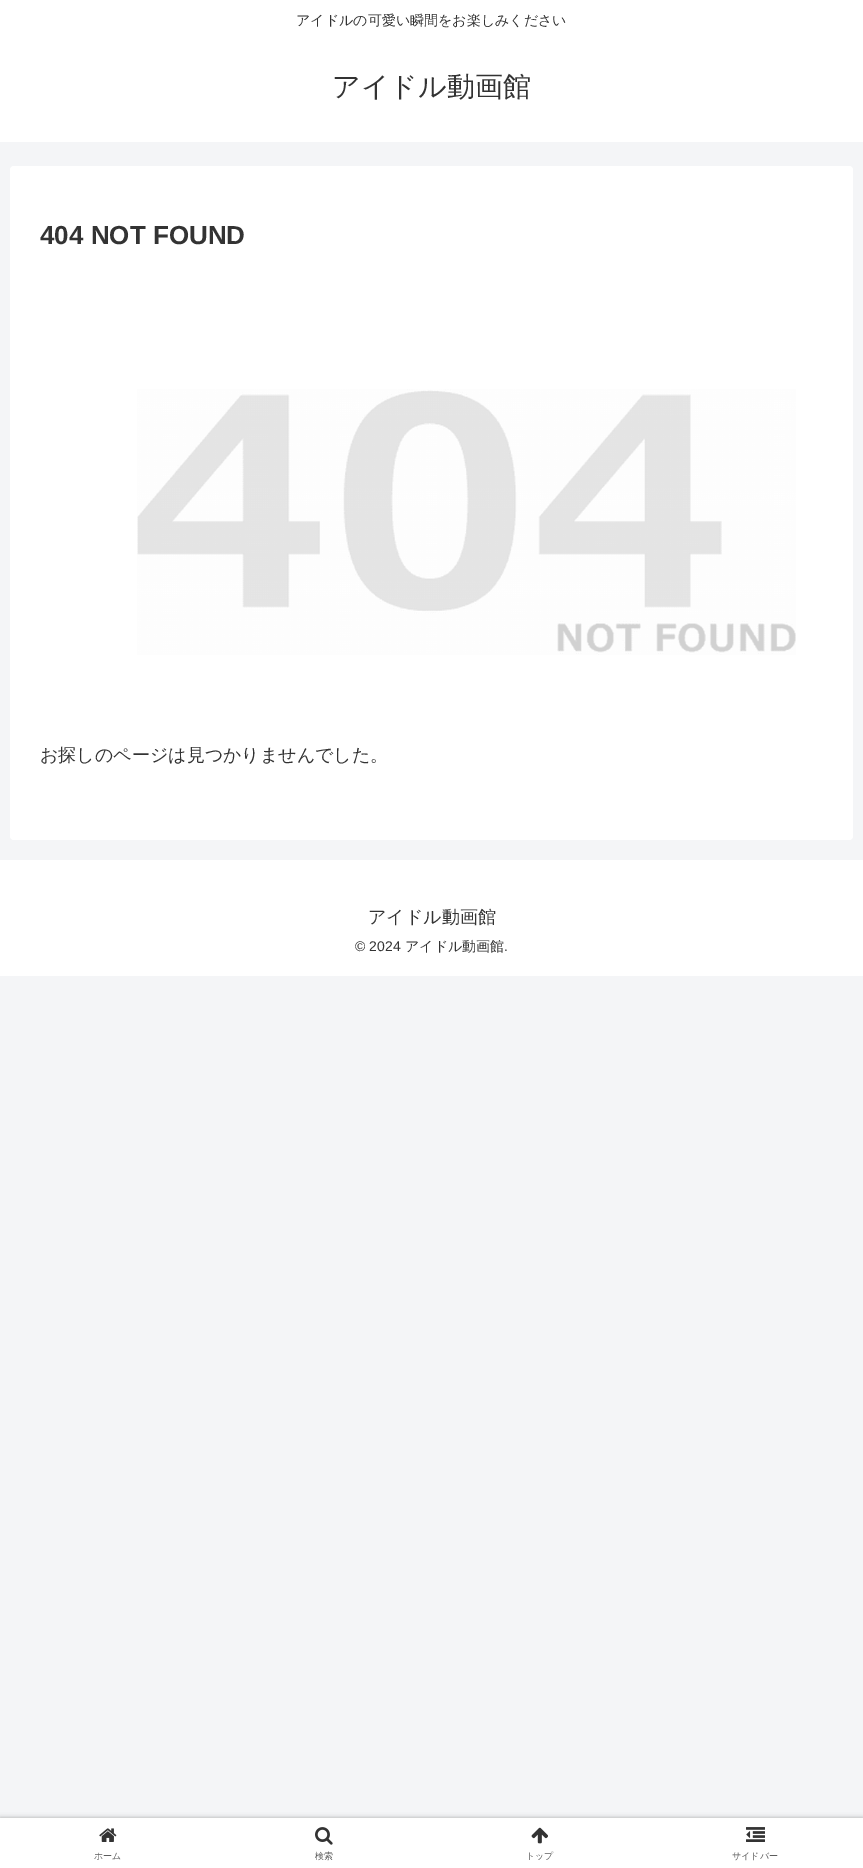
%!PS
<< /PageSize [863 1868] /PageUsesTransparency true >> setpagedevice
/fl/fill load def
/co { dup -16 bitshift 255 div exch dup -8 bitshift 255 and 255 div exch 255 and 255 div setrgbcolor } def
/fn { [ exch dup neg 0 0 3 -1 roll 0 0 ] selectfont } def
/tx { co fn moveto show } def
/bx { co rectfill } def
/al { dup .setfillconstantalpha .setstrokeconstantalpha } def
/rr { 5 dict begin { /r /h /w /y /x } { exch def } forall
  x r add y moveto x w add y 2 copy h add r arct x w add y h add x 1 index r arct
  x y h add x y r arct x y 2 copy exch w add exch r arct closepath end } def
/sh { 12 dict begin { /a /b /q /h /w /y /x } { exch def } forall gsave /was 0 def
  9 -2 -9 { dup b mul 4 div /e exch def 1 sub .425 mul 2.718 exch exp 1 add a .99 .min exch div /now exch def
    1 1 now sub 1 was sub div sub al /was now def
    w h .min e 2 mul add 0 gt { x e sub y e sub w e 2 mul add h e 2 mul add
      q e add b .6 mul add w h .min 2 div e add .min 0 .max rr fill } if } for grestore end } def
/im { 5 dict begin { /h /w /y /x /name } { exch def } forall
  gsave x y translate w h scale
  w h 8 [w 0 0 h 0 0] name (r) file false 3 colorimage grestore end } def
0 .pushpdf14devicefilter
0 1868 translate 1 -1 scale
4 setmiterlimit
0 0 863 1868 16#F4F5F7 bx
0 0 863 142 16#FFFFFF bx
10 166 843 674 4 rr fl
(media/1.raw) 137 389 659 266 im
0 860 863 116 16#FFFFFF bx
16#A9A9A9 co
0 1818 863 50 0 2.5 1 sh
0 1818 863 50 16#FFFFFF bx
(media/2.raw) 99 1828 18 14 im
(media/3.raw) 315 1827 18 18 im
(media/4.raw) 531 1827 17 17 im
(media/5.raw) 746 1827 19 15 im
(アイドルの可愛い瞬間をお楽しみください) 296 25 /WenQuanYiZenHei-Medium 14 16#333333 tx
(アイドル動画館) 332 96 /WenQuanYiZenHei-Medium 28 16#333333 tx
(404 NOT FOUND) 40 244 /LiberationSans-Bold 26 16#333333 tx
(お探しのページは見つかりませんでした。) 40 761 /WenQuanYiZenHei-Medium 18 16#333333 tx
(アイドル動画館) 368 923 /WenQuanYiZenHei-Medium 18 16#333333 tx
(© 2024) 355 951 /LiberationSans-Regular 14 16#333333 tx
(アイドル動画館) 405 951 /WenQuanYiZenHei-Medium 14 16#333333 tx
(.) 504 951 /LiberationSans-Regular 14 16#333333 tx
(ホーム) 94 1859 /WenQuanYiZenHei-Medium 9 16#5C5C5C tx
(検索) 315 1859 /WenQuanYiZenHei-Medium 9 16#5C5C5C tx
(トップ) 526 1859 /WenQuanYiZenHei-Medium 9 16#5C5C5C tx
(サイドバー) 732 1859 /WenQuanYiZenHei-Medium 9 16#5C5C5C tx
.poppdf14devicefilter showpage
